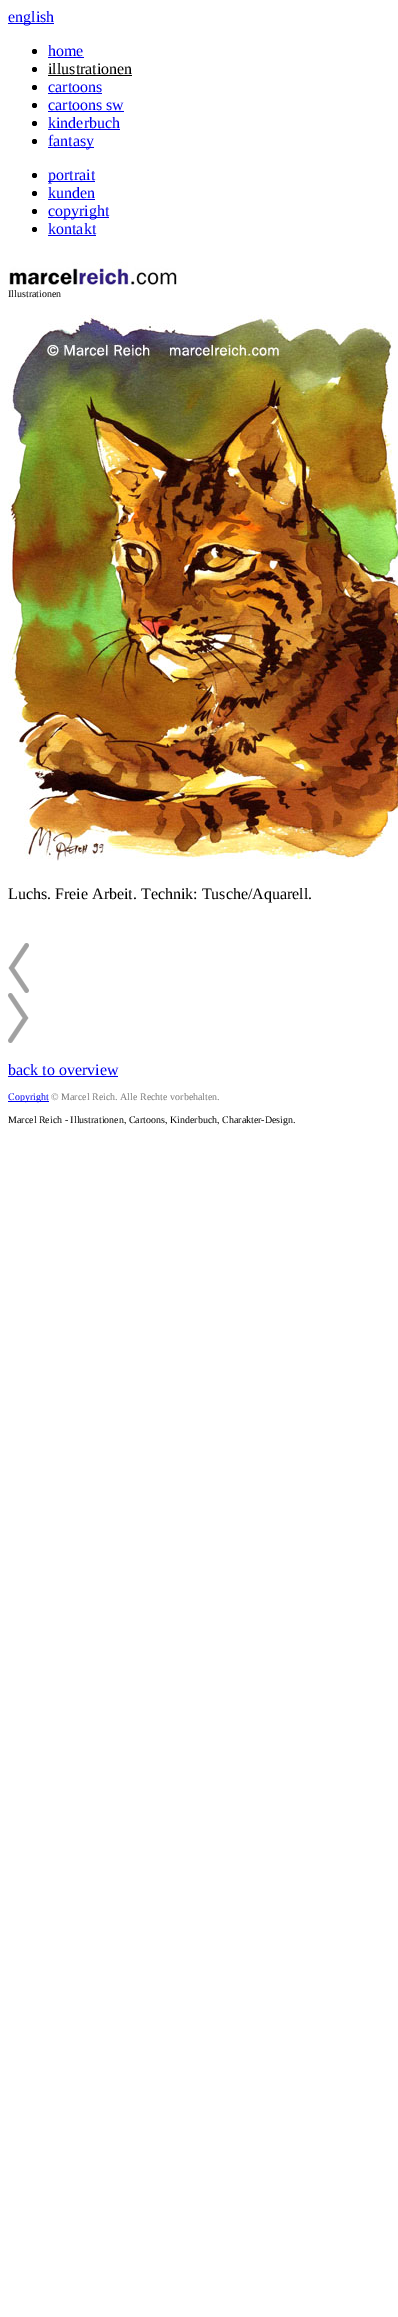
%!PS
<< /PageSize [398 2317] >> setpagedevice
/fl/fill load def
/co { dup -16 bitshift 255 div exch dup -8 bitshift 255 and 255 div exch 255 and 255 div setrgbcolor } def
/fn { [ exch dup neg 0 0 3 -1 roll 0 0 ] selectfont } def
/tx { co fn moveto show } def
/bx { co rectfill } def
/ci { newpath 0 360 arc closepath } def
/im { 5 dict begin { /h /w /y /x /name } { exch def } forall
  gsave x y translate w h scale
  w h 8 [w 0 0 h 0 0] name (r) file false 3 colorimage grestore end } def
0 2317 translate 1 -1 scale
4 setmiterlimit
0 0 398 2317 16#FFFFFF bx
8 23 46 1 16#0000EE bx
16#000000 co
34.5 51.5 2.5 ci fl
48 57 36 1 16#0000EE bx
16#000000 co
34.5 69.5 2.5 ci fl
48 75 84 1 16#000000 bx
34.5 87.5 2.5 ci fl
48 93 54 1 16#0000EE bx
16#000000 co
34.5 105.5 2.5 ci fl
48 111 76 1 16#0000EE bx
16#000000 co
34.5 123.5 2.5 ci fl
48 129 72 1 16#0000EE bx
16#000000 co
34.5 141.5 2.5 ci fl
48 147 46 1 16#0000EE bx
16#000000 co
34.5 175.5 2.5 ci fl
48 181 47 1 16#0000EE bx
16#000000 co
34.5 193.5 2.5 ci fl
48 199 47 1 16#0000EE bx
16#000000 co
34.5 211.5 2.5 ci fl
48 217 61 1 16#0000EE bx
16#000000 co
34.5 229.5 2.5 ci fl
48 235 48 1 16#0000EE bx
(media/1.raw) 9 262 168 24 im
(media/2.raw) 8 315 390 546 im
(media/3.raw) 8 943 21 50 im
(media/4.raw) 8 993 21 50 im
8 1076 110 1 16#0000EE bx
8 1101 41 1 16#0000EE bx
(english) 8 22 /LiberationSerif-Regular 16 16#0000EE tx
(home) 48 56 /LiberationSerif-Regular 16 16#0000EE tx
(illustrationen) 48 74 /LiberationSerif-Regular 16 16#000000 tx
(cartoons) 48 92 /LiberationSerif-Regular 16 16#0000EE tx
(cartoons sw) 48 110 /LiberationSerif-Regular 16 16#0000EE tx
(kinderbuch) 48 128 /LiberationSerif-Regular 16 16#0000EE tx
(fantasy) 48 146 /LiberationSerif-Regular 16 16#0000EE tx
(portrait) 48 180 /LiberationSerif-Regular 16 16#0000EE tx
(kunden) 48 198 /LiberationSerif-Regular 16 16#0000EE tx
(copyright) 48 216 /LiberationSerif-Regular 16 16#0000EE tx
(kontakt) 48 234 /LiberationSerif-Regular 16 16#0000EE tx
(Illustrationen) 8 297 /LiberationSerif-Regular 10 16#000000 tx
(Luchs. Freie Arbeit. Technik: Tusche/Aquarell.) 8 899 /LiberationSerif-Regular 16 16#000000 tx
(back to overview) 8 1075 /LiberationSerif-Regular 16 16#0000EE tx
(Copyright) 8 1100 /LiberationSerif-Regular 10 16#0000EE tx
(© Marcel Reich. Alle Rechte vorbehalten.) 51 1100 /LiberationSerif-Regular 10 16#777777 tx
(Marcel Reich - Illustrationen, Cartoons, Kinderbuch, Charakter-Design.) 8 1123 /LiberationSerif-Regular 10 16#000000 tx
showpage
